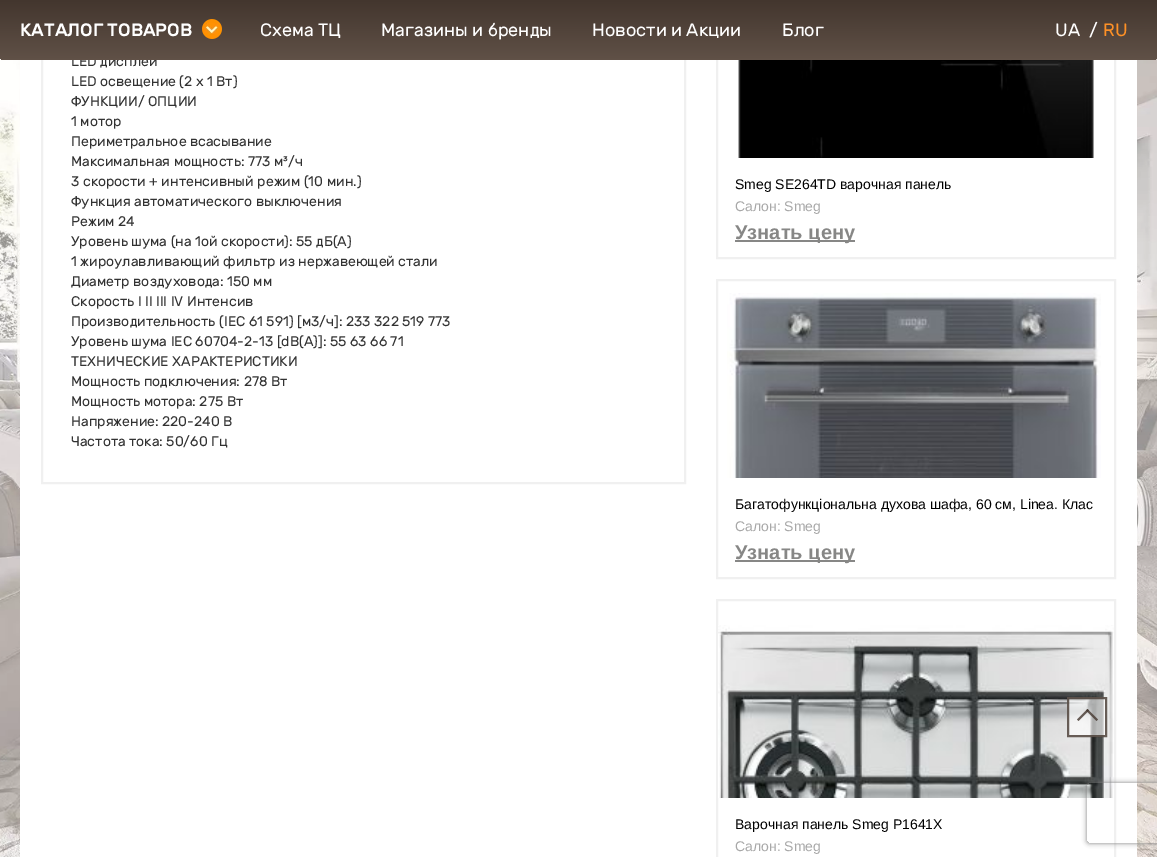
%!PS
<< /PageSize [1157 857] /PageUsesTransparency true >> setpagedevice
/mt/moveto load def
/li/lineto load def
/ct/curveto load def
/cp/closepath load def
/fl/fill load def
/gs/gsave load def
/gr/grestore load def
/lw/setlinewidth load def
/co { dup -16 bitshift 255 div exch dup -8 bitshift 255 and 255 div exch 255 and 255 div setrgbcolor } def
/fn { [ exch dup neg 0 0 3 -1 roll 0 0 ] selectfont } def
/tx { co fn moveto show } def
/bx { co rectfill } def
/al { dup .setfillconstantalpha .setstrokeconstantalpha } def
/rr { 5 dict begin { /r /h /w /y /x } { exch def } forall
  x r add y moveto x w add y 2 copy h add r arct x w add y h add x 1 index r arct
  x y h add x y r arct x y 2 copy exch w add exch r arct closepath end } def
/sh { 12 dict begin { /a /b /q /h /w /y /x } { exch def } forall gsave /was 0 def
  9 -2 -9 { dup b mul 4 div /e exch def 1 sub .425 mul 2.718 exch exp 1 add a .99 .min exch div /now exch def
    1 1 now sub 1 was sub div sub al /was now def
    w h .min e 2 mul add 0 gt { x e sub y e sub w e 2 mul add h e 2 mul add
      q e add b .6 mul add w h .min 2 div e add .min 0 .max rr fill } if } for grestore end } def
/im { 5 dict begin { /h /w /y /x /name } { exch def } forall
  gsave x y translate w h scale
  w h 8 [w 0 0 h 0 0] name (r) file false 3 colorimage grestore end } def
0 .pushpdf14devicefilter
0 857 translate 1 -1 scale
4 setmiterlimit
0 0 1157 857 16#FFFFFF bx
(media/1.raw) 0 55 1157 802 im
20 60 1117 797 16#FFFFFF bx
16#F0F0F0 co
2 lw
42 -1 643 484 rectstroke
717 -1 398 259 rectstroke
(media/3.raw) 738 60 356 98 im
735 240 120 2 16#878786 bx
16#F0F0F0 co
717 280 398 298 rectstroke
(media/4.raw) 727 293 374 185 im
735 560 120 2 16#878786 bx
16#F0F0F0 co
717 600 398 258 rectstroke
(media/5.raw) 718 625 396 173 im
0.64 al
1067 697 40 40 16#FFFFFF bx
0.8 al
16#43362E co
1068 698 38 38 rectstroke
1087.5 709 mt 1098 719.5 li 1096.5 721 li 1086 710.5 li cp fl
1087.5 709 mt 1089 710.5 li 1078.5 721 li 1077 719.5 li cp fl
gs
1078 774 mt 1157 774 li 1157 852 li 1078 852 li cp 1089 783 mt 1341 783 li 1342 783 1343 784 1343 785 ct 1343 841 li 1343 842 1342 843 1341 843 ct 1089 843 li 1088 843 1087 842 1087 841 ct 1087 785 li 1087 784 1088 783 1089 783 ct cp eoclip newpath
1 al
16#808080 co
1087 783 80 60 2 2.5 1 sh
gr
1 al
(LED дисплей) 71 66 /Rubik-Regular 14 16#323232 tx
gs 0 0 mt 1157 0 li 1157 55 li 1157 58 1155 60 1152 60 ct 5 60 li 2 60 0 58 0 55 ct cp clip newpath
<< /ShadingType 2 /ColorSpace /DeviceRGB /Coords [579 0 579 60] /Extend [true true] /Function << /FunctionType 2 /Domain [0 1] /C0 [.263 .212 .18] /C1 [.376 .318 .278] /N 1 >> >> shfill gr
(Блог) 782 36 /Rubik-Regular 18 16#FFFFFF tx
(Новости и Акции) 592 36 /Rubik-Regular 18 16#FFFFFF tx
(Магазины и бренды) 381 36 /Rubik-Regular 18 16#FFFFFF tx
(Схема ТЦ) 260 36 /Rubik-Regular 18 16#FFFFFF tx
(media/2.raw) 202 19 20 20 im
(КАТАЛОГ ТОВАРОВ) 20 36 /Rubik-Medium 18 16#FFFFFF tx
(RU) 1103 36 /Rubik-Regular 18 16#FD9026 tx
(/) 1089 36 /Rubik-Regular 18 16#FFFFFF tx
(UA) 1055 36 /Rubik-Regular 18 16#FFFFFF tx
(LED освещение \(2 х 1 Вт\)) 71 86 /Rubik-Regular 14 16#323232 tx
(ФУНКЦИИ/ ОПЦИИ) 71 106 /Rubik-Regular 14 16#323232 tx
(1 мотор) 71 126 /Rubik-Regular 14 16#323232 tx
(Периметральное всасывание) 71 146 /Rubik-Regular 14 16#323232 tx
(Максимальная мощность: 773 м³/ч) 71 166 /Rubik-Regular 14 16#323232 tx
(3 скорости + интенсивный режим \(10 мин.\)) 71 186 /Rubik-Regular 14 16#323232 tx
(Функция автоматического выключения) 71 206 /Rubik-Regular 14 16#323232 tx
(Режим 24) 71 226 /Rubik-Regular 14 16#323232 tx
(Уровень шума \(на 1ой скорости\): 55 дБ\(А\)) 71 246 /Rubik-Regular 14 16#323232 tx
(1 жироулавливающий фильтр из нержавеющей стали) 71 266 /Rubik-Regular 14 16#323232 tx
(Диаметр воздуховода: 150 мм) 71 286 /Rubik-Regular 14 16#323232 tx
(Скорость I II III IV Интенсив) 71 306 /Rubik-Regular 14 16#323232 tx
(Производительность \(IEC 61 591\) [м3/ч]: 233 322 519 773) 71 326 /Rubik-Regular 14 16#323232 tx
(Уровень шума IEC 60704-2-13 [dB\(A\)]: 55 63 66 71) 71 346 /Rubik-Regular 14 16#323232 tx
(ТЕХНИЧЕСКИЕ ХАРАКТЕРИСТИКИ) 71 366 /Rubik-Regular 14 16#323232 tx
(Мощность подключения: 278 Вт) 71 386 /Rubik-Regular 14 16#323232 tx
(Мощность мотора: 275 Вт) 71 406 /Rubik-Regular 14 16#323232 tx
(Напряжение: 220-240 В) 71 426 /Rubik-Regular 14 16#323232 tx
(Частота тока: 50/60 Гц) 71 446 /Rubik-Regular 14 16#323232 tx
(Smeg SE264TD варочная панель) 735 189 /Arimo-Regular 14 16#000000 tx
(Салон: Smeg) 735 211 /Arimo-Regular 14 16#A8A8A8 tx
(Узнать цену) 735 239 /Arimo-Bold 20 16#878786 tx
(Багатофункціональна духова шафа, 60 см, Linea. Клас) 735 509 /Arimo-Regular 14 16#000000 tx
(Салон: Smeg) 735 531 /Arimo-Regular 14 16#A8A8A8 tx
(Узнать цену) 735 559 /Arimo-Bold 20 16#878786 tx
(Варочная панель Smeg P1641X) 735 829 /Arimo-Regular 14 16#000000 tx
(Салон: Smeg) 735 851 /Arimo-Regular 14 16#A8A8A8 tx
.poppdf14devicefilter showpage
